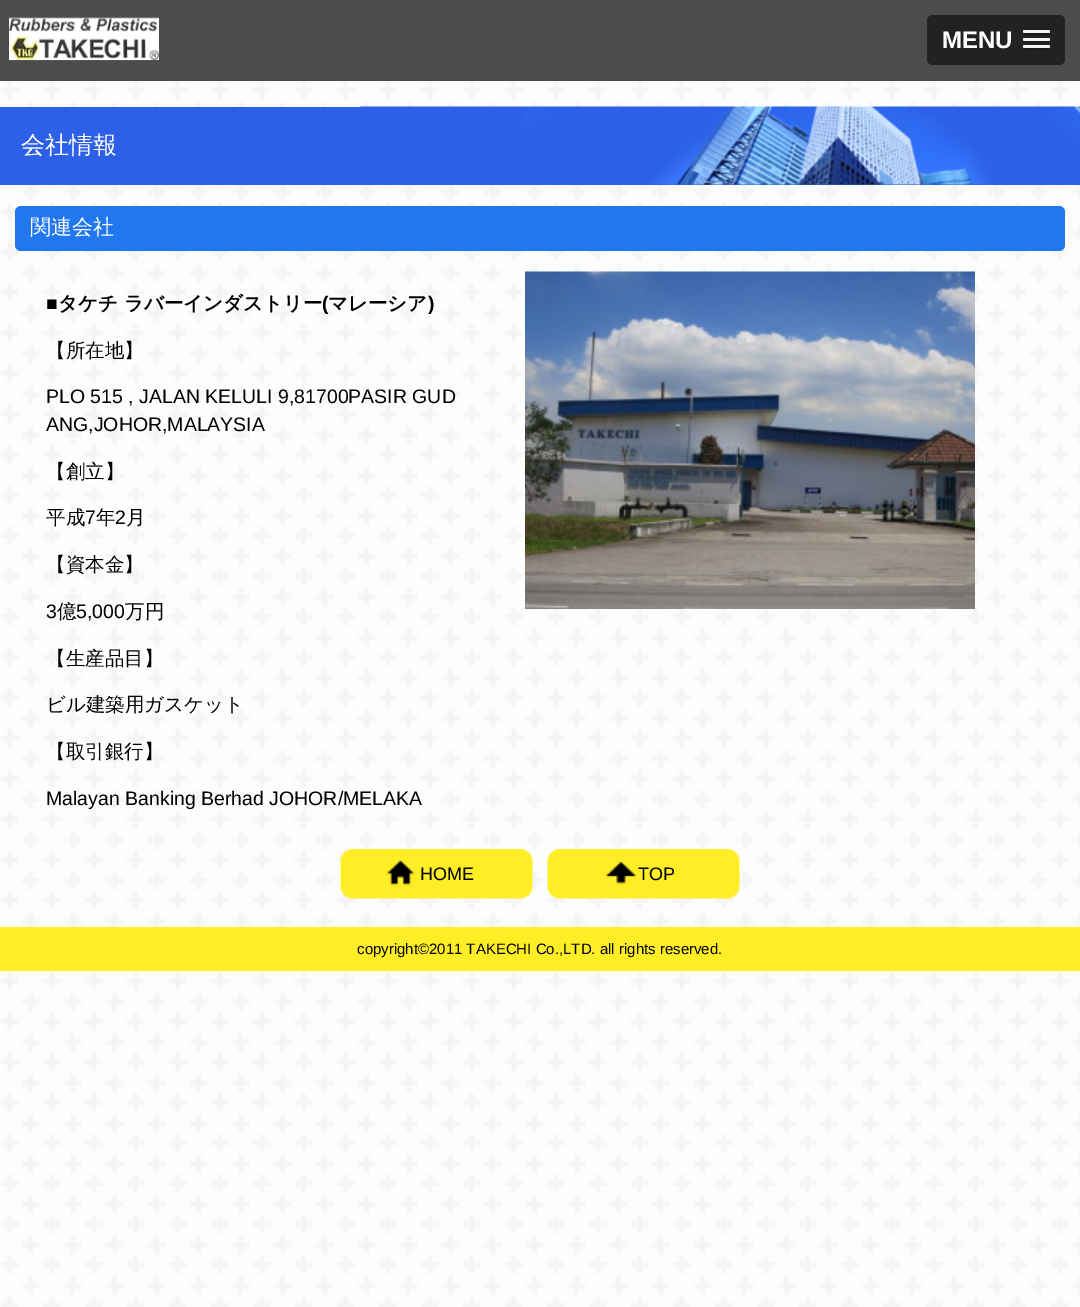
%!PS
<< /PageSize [1080 1307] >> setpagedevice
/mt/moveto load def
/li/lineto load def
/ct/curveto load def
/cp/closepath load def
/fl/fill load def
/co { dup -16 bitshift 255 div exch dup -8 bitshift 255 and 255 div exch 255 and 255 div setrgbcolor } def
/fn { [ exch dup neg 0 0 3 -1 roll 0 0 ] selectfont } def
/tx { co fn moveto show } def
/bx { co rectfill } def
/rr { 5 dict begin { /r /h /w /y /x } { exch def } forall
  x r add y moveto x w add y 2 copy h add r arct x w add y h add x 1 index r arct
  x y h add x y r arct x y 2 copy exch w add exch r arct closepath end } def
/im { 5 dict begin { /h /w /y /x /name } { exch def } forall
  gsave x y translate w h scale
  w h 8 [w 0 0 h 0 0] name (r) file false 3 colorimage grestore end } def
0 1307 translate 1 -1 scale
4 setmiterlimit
0 0 1080 1307 16#FFFFFF bx
(media/1.raw) 0 81 1080 1226 im
0 0 1080 81 16#4C4C4C bx
(media/2.raw) 9 17 150 44 im
16#222222 co
927 15 138 50 6 rr fl
16#1A1A1A co
1023.5 32.5 mt 1023 34 li 1023.5 36 1028 35 1028.5 35 ct 1044.5 35 li 1045 35 1049.5 36 1050 34 ct 1049.5 32.5 li 1048.5 33 li 1024.5 33 li cp fl
16#F5F5F5 co
1023 30 27 3 1.5 rr fl
16#1A1A1A co
1023 39.5 mt 1021.5 43 1028.5 42 1028.5 42 ct 1044.5 42 li 1044.5 42 1051.5 43 1050 39.5 ct 1049.5 40 1049 40.5 1048.5 40.5 ct 1024.5 40.5 li 1024 40.5 1023.5 40 1023 39.5 ct cp fl
16#F5F5F5 co
1023 38 27 3 1.5 rr fl
16#1A1A1A co
1023.5 47.5 mt 1023 49 li 1023.5 51 1028 50 1028.5 50 ct 1044.5 50 li 1045 50 1049.5 51 1050 49 ct 1049.5 47.5 li 1048.5 48 li 1024.5 48 li cp fl
16#F5F5F5 co
1023 45 27 3 1.5 rr fl
0 107 1080 78 16#2D60E7 bx
(media/3.raw) 360 106 720 79 im
16#2077EE co
15 206 1050 45 6 rr fl
(media/4.raw) 525 271 450 338 im
(media/5.raw) 340 849 193 50 im
(media/6.raw) 547 849 193 50 im
0 927 1080 44 16#FFED26 bx
(MENU) 942 48 /LiberationSans-Bold 24 16#FFFFFF tx
(会社情報) 21 153 /WenQuanYiZenHei-Medium 24 16#FFFFFF tx
(関連会社) 30 234 /WenQuanYiZenHei-Medium 21 16#FFFFFF tx
(■) 46 310 /LiberationSans-Bold 19.5 16#000000 tx
(タケチ ラバーインダストリー) 58 310 /WenQuanYiZenHei-Bold 19.5 16#000000 tx
(\() 322 310 /LiberationSans-Bold 19.5 16#000000 tx
(マレーシア) 328 310 /WenQuanYiZenHei-Bold 19.5 16#000000 tx
(\)) 428 310 /LiberationSans-Bold 19.5 16#000000 tx
(【所在地】) 46 357 /WenQuanYiZenHei-Medium 19.5 16#000000 tx
(PLO 515 , JALAN KELULI 9,81700PASIR GUD) 46 403 /LiberationSans-Regular 19.5 16#000000 tx
(ANG,JOHOR,MALAYSIA) 46 431 /LiberationSans-Regular 19.5 16#000000 tx
(【創立】) 46 478 /WenQuanYiZenHei-Medium 19.5 16#000000 tx
(平成) 46 524 /WenQuanYiZenHei-Medium 19.5 16#000000 tx
(7) 85 524 /LiberationSans-Regular 19.5 16#000000 tx
(年) 96 524 /WenQuanYiZenHei-Medium 19.5 16#000000 tx
(2) 115 524 /LiberationSans-Regular 19.5 16#000000 tx
(月) 126 524 /WenQuanYiZenHei-Medium 19.5 16#000000 tx
(【資本金】) 46 571 /WenQuanYiZenHei-Medium 19.5 16#000000 tx
(3) 46 618 /LiberationSans-Regular 19.5 16#000000 tx
(億) 57 618 /WenQuanYiZenHei-Medium 19.5 16#000000 tx
(5,000) 76 618 /LiberationSans-Regular 19.5 16#000000 tx
(万円) 125 618 /WenQuanYiZenHei-Medium 19.5 16#000000 tx
(【生産品目】) 46 665 /WenQuanYiZenHei-Medium 19.5 16#000000 tx
(ビル建築用ガスケット) 46 711 /WenQuanYiZenHei-Medium 19.5 16#000000 tx
(【取引銀行】) 46 758 /WenQuanYiZenHei-Medium 19.5 16#000000 tx
(Malayan Banking Berhad JOHOR/MELAKA) 46 805 /LiberationSans-Regular 19.5 16#000000 tx
(HOME) 420 880 /LiberationSans-Regular 18 16#000000 tx
(TOP) 638 880 /LiberationSans-Regular 18 16#000000 tx
(copyright©2011 TAKECHI Co.,LTD. all rights reserved.) 357 954 /LiberationSans-Regular 15 16#000000 tx
showpage
